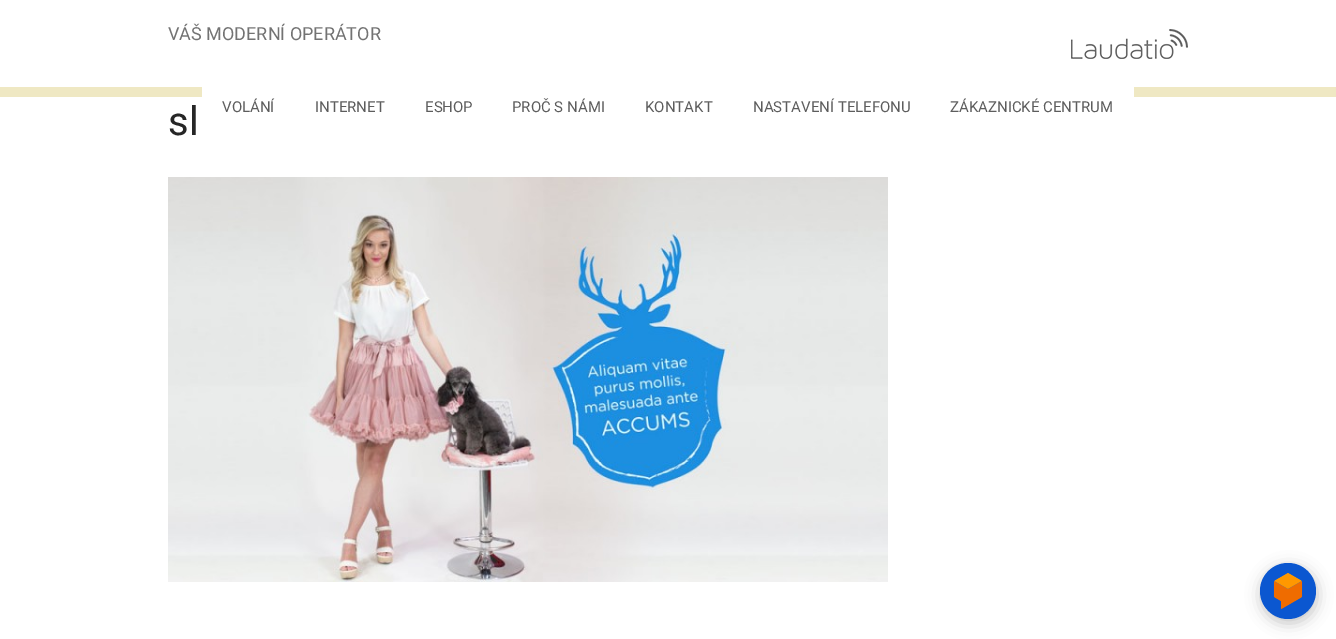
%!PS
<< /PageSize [1336 639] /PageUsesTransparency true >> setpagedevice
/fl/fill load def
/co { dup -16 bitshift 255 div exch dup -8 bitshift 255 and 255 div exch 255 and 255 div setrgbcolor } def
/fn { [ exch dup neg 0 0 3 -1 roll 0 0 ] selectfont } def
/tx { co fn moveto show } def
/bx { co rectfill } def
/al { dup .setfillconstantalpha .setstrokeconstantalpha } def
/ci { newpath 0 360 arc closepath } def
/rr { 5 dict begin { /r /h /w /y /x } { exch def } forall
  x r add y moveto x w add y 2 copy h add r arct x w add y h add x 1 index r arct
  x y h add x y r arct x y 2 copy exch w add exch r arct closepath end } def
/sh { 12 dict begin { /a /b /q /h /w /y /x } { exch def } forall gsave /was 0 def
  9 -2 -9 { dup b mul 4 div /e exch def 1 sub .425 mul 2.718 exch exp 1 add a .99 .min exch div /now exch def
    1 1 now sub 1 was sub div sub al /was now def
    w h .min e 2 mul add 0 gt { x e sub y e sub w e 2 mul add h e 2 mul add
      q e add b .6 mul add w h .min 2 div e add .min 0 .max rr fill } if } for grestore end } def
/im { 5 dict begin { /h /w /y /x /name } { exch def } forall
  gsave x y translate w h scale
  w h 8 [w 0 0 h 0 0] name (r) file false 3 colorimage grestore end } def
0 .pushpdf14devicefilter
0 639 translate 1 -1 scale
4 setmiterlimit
0 0 1336 639 16#FFFFFF bx
0 87 1336 10 16#EFE8C3 bx
(media/1.raw) 1071 29 117 30 im
202 87 932 10 16#FFFFFF bx
(media/2.raw) 168 177 720 405 im
16#000000 co
1261 567 56 56 28 7.5 .24 sh
16#0B57D0 co
1288 591 28 ci fl
(media/3.raw) 1273 573 30 36 im
(VÁŠ MODERNÍ OPERÁTOR) 168 40 /Roboto-Regular 18 16#737373 tx
(VOLÁNÍ) 222 112 /Roboto-Regular 15 16#5D5D5D tx
(INTERNET) 315 112 /Roboto-Regular 15 16#5D5D5D tx
(ESHOP) 425 112 /Roboto-Regular 15 16#5D5D5D tx
(PROČ S NÁMI) 512 112 /Roboto-Regular 15 16#5D5D5D tx
(KONTAKT) 645 112 /Roboto-Regular 15 16#5D5D5D tx
(NASTAVENÍ TELEFONU) 753 112 /Roboto-Regular 15 16#5D5D5D tx
(ZÁKAZNICKÉ CENTRUM) 950 112 /Roboto-Regular 15 16#5D5D5D tx
(sl) 168 135 /Roboto-Regular 40 16#262626 tx
.poppdf14devicefilter showpage
